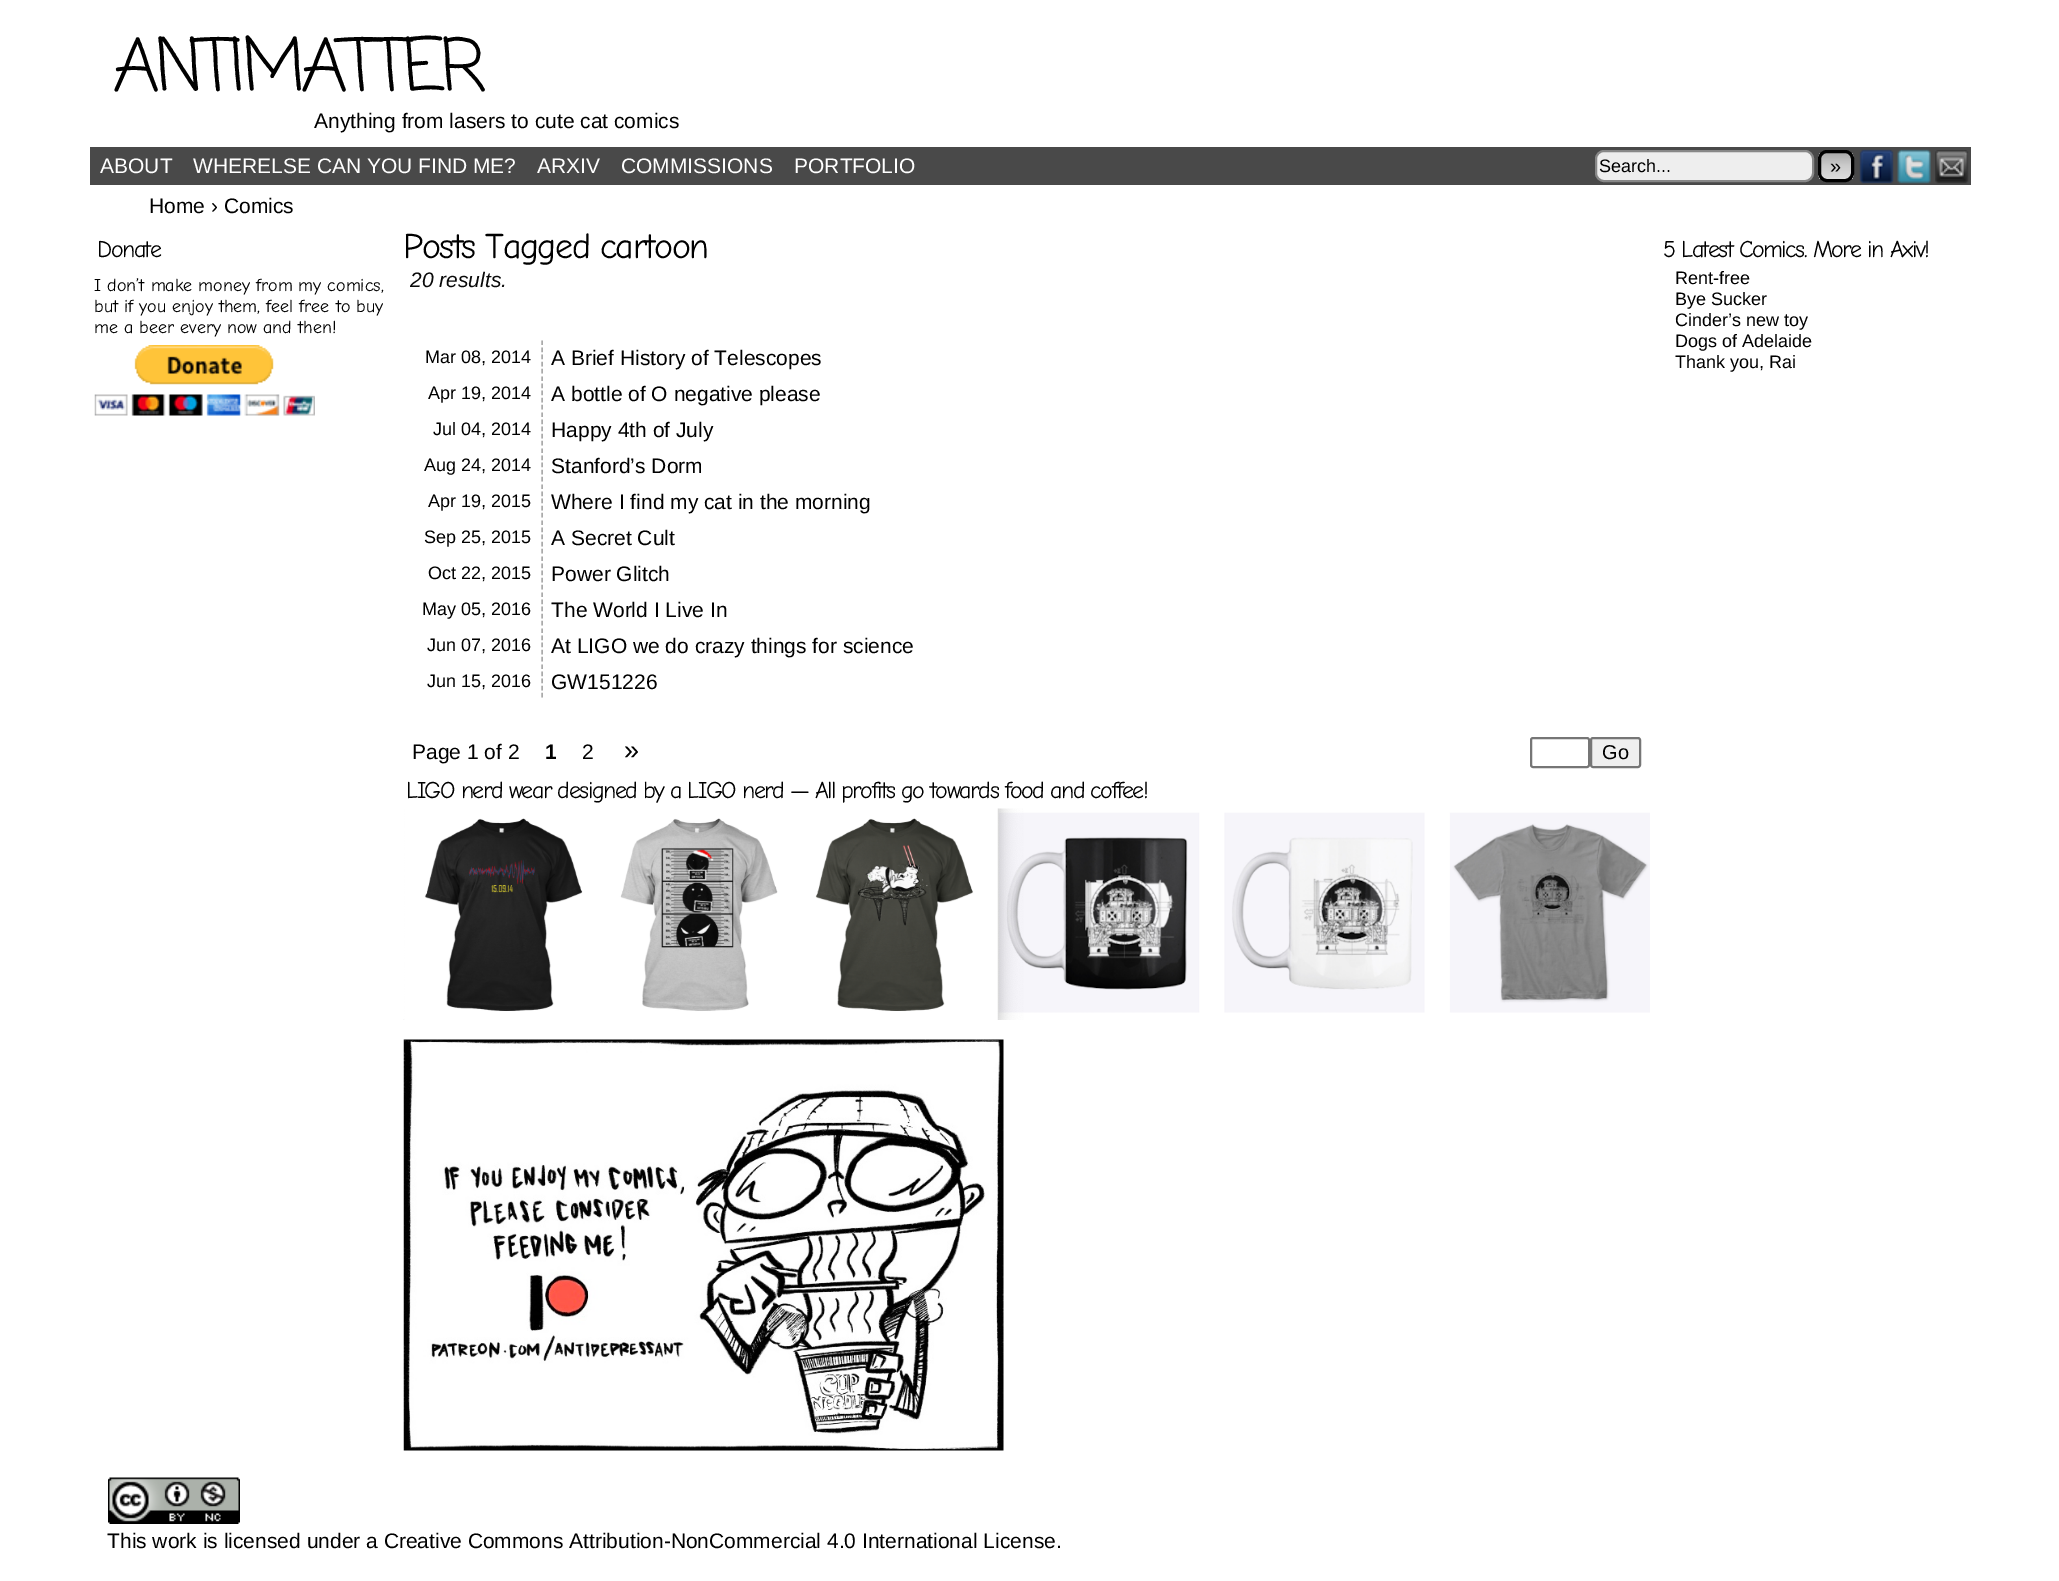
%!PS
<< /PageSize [2059 1581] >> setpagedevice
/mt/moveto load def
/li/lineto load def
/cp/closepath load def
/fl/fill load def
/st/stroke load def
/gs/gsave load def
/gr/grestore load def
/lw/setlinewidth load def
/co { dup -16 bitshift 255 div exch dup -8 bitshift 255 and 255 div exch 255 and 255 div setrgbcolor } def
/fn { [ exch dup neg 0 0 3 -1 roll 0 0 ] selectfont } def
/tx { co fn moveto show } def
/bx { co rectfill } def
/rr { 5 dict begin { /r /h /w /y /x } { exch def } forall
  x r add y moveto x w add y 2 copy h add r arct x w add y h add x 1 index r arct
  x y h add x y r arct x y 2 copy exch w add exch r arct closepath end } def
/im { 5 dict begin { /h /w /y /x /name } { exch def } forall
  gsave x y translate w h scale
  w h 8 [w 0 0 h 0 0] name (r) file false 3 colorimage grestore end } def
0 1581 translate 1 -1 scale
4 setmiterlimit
0 0 2059 1581 16#FFFFFF bx
90 147 1881 38 16#494949 bx
16#EEEEEE co
1596 151 217 30 8 rr gs fl gr
16#888888 co
2 lw
st
gs
1818 150 36 32 9 rr clip newpath
gs 1818 153 mt 1854 153 li 1854 179 li 1818 179 li cp clip newpath
<< /ShadingType 2 /ColorSpace /DeviceRGB /Coords [1836 153 1836 179] /Extend [true true] /Function << /FunctionType 3 /Domain [0 1] /Functions [<< /FunctionType 2 /Domain [0 1] /C0 [.667 .667 .667] /C1 [.8 .8 .8] /N 1 >> << /FunctionType 2 /Domain [0 1] /C0 [.8 .8 .8] /C1 [.867 .867 .867] /N 1 >>] /Bounds [.5] /Encode [0 1 0 1] >> >> shfill gr
gr
16#000000 co
3 lw
1819.5 151.5 33 29 7.5 rr st
(media/1.raw) 1859 149 35 35 im
(media/2.raw) 1897 149 34 35 im
(media/3.raw) 1935 150 34 34 im
(media/4.raw) 94 345 221 71 im
16#AAAAAA co
1.5 lw
[4.5 2.62] 0 setdash
542 340.5 mt 542 373.5 li st
542 376.5 mt 542 409.5 li st
542 412.5 mt 542 445.5 li st
542 448.5 mt 542 481.5 li st
542 484.5 mt 542 517.5 li st
542 520.5 mt 542 553.5 li st
542 556.5 mt 542 589.5 li st
542 592.5 mt 542 625.5 li st
542 628.5 mt 542 661.5 li st
542 664.5 mt 542 697.5 li st
16#767676 co
2 lw
[] 0 setdash
1531 738 58 29 2 rr st
16#EFEFEF co
1591 738 49 29 2 rr gs fl gr
16#767676 co
st
(media/5.raw) 403 808 1247 212 im
(media/6.raw) 403 1039 601 412 im
(media/7.raw) 108 1477 132 47 im
/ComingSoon-Regular 72 fn
16#000000 co
113 90 mt -4.5 0 (ANTIMATTER) ashow
(Anything from lasers to cute cat comics) 314 128 /LiberationSans-Regular 21 16#000000 tx
(ABOUT) 100 173 /LiberationSans-Regular 21 16#FFFFFF tx
(WHERELSE CAN YOU FIND ME?) 193 173 /LiberationSans-Regular 21 16#FFFFFF tx
(ARXIV) 537 173 /LiberationSans-Regular 21 16#FFFFFF tx
(COMMISSIONS) 621 173 /LiberationSans-Regular 21 16#FFFFFF tx
(PORTFOLIO) 794 173 /LiberationSans-Regular 21 16#FFFFFF tx
(Search...) 1599 172 /LiberationSans-Regular 18 16#000000 tx
(») 1830 173 /LiberationSans-Regular 20 16#000000 tx
(Home › Comics) 149 213 /LiberationSans-Regular 21 16#000000 tx
/ComicNeue-Regular 24 fn
97 257 mt -1.5 0 (Donate) ashow
(I don’t make money from my comics,) 94 291 /ComicNeue-Regular 18 16#000000 tx
(but if you enjoy them, feel free to buy) 94 312 /ComicNeue-Regular 18 16#000000 tx
(me a beer every now and then!) 94 333 /ComicNeue-Regular 18 16#000000 tx
/ComicNeue-Regular 36 fn
403 258 mt -1.5 0 (Posts Tagged cartoon) ashow
(20 results.) 410 287 /LiberationSans-Italic 21 16#0A0A0A tx
(Mar 08, 2014) 425 363 /LiberationSans-Regular 18 16#000000 tx
(A Brief History of Telescopes) 551 365 /LiberationSans-Regular 21 16#000000 tx
(Apr 19, 2014) 428 399 /LiberationSans-Regular 18 16#000000 tx
(A bottle of O negative please) 551 401 /LiberationSans-Regular 21 16#000000 tx
(Jul 04, 2014) 433 435 /LiberationSans-Regular 18 16#000000 tx
(Happy 4th of July) 551 437 /LiberationSans-Regular 21 16#000000 tx
(Aug 24, 2014) 424 471 /LiberationSans-Regular 18 16#000000 tx
(Stanford’s Dorm) 551 473 /LiberationSans-Regular 21 16#000000 tx
(Apr 19, 2015) 428 507 /LiberationSans-Regular 18 16#000000 tx
(Where I find my cat in the morning) 551 509 /LiberationSans-Regular 21 16#000000 tx
(Sep 25, 2015) 424 543 /LiberationSans-Regular 18 16#000000 tx
(A Secret Cult) 551 545 /LiberationSans-Regular 21 16#000000 tx
(Oct 22, 2015) 428 579 /LiberationSans-Regular 18 16#000000 tx
(Power Glitch) 551 581 /LiberationSans-Regular 21 16#000000 tx
(May 05, 2016) 422 615 /LiberationSans-Regular 18 16#000000 tx
(The World I Live In) 551 617 /LiberationSans-Regular 21 16#000000 tx
(Jun 07, 2016) 427 651 /LiberationSans-Regular 18 16#000000 tx
(At LIGO we do crazy things for science) 551 653 /LiberationSans-Regular 21 16#000000 tx
(Jun 15, 2016) 427 687 /LiberationSans-Regular 18 16#000000 tx
(GW151226) 551 689 /LiberationSans-Regular 21 16#000000 tx
(Page 1 of 2) 412 759 /LiberationSans-Regular 21 16#000000 tx
(1) 545 759 /LiberationSans-Bold 21 16#000000 tx
(2) 582 759 /LiberationSans-Regular 21 16#000000 tx
(») 624 759 /LiberationSans-Regular 27 16#000000 tx
(Go) 1602 759 /LiberationSans-Regular 20 16#000000 tx
/ComicNeue-Regular 24 fn
406 798 mt -1.5 0 (LIGO nerd wear designed by a LIGO nerd — All profits go towards food and coffee!) ashow
1663 257 mt -1.5 0 (5 Latest Comics. More in Axiv!) ashow
(Rent-free) 1675 284 /LiberationSans-Regular 18 16#000000 tx
(Bye Sucker) 1675 305 /LiberationSans-Regular 18 16#000000 tx
(Cinder’s new toy) 1675 326 /LiberationSans-Regular 18 16#000000 tx
(Dogs of Adelaide) 1675 347 /LiberationSans-Regular 18 16#000000 tx
(Thank you, Rai) 1675 368 /LiberationSans-Regular 18 16#000000 tx
(This work is licensed under a Creative Commons Attribution-NonCommercial 4.0 International License.) 107 1548 /LiberationSans-Regular 21 16#000000 tx
showpage
